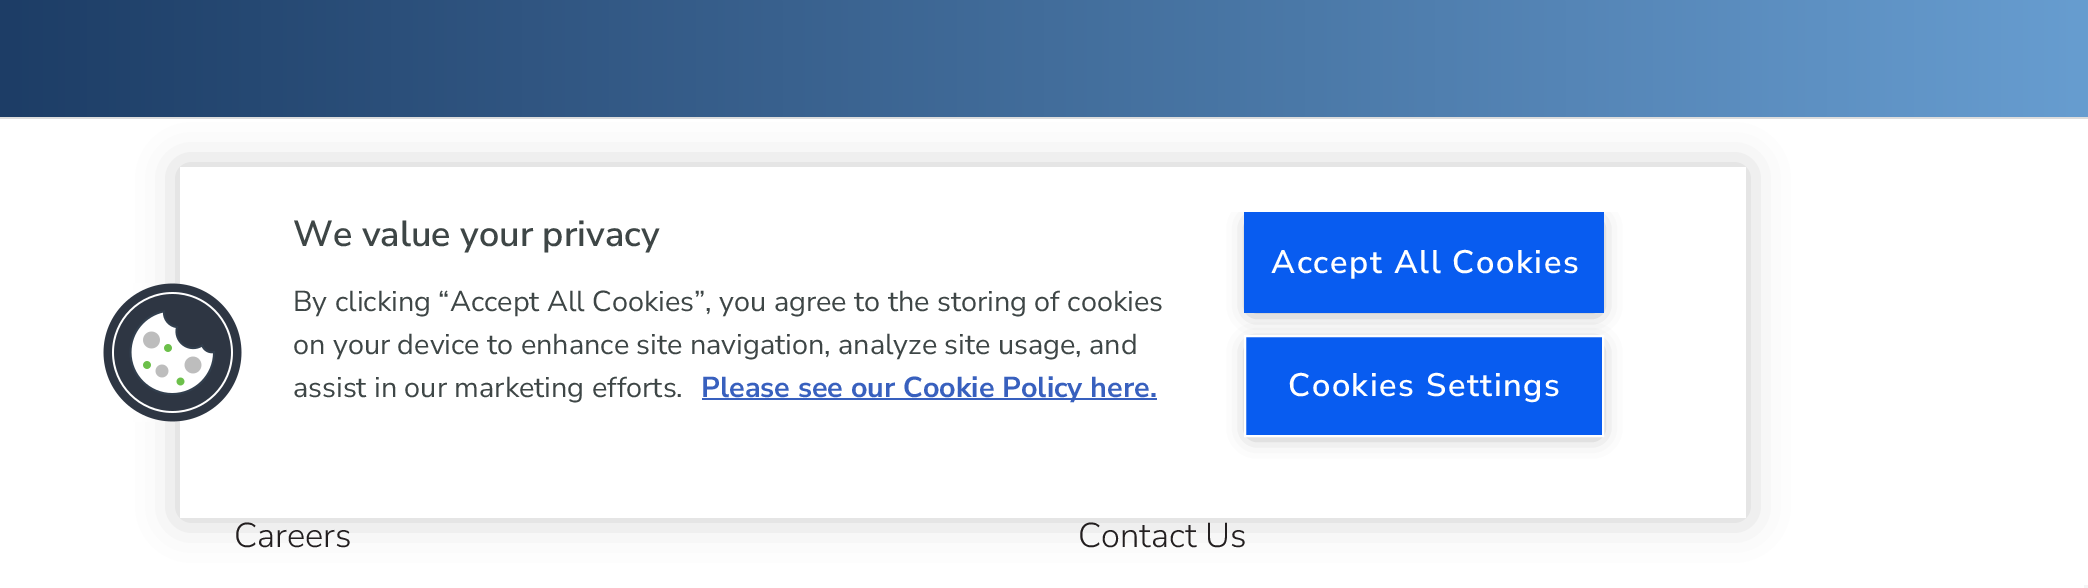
%!PS
<< /PageSize [2088 588] /PageUsesTransparency true >> setpagedevice
/mt/moveto load def
/li/lineto load def
/cp/closepath load def
/fl/fill load def
/st/stroke load def
/gs/gsave load def
/gr/grestore load def
/lw/setlinewidth load def
/co { dup -16 bitshift 255 div exch dup -8 bitshift 255 and 255 div exch 255 and 255 div setrgbcolor } def
/fn { [ exch dup neg 0 0 3 -1 roll 0 0 ] selectfont } def
/tx { co fn moveto show } def
/bx { co rectfill } def
/al { dup .setfillconstantalpha .setstrokeconstantalpha } def
/rr { 5 dict begin { /r /h /w /y /x } { exch def } forall
  x r add y moveto x w add y 2 copy h add r arct x w add y h add x 1 index r arct
  x y h add x y r arct x y 2 copy exch w add exch r arct closepath end } def
/sh { 12 dict begin { /a /b /q /h /w /y /x } { exch def } forall gsave /was 0 def
  9 -2 -9 { dup b mul 4 div /e exch def 1 sub .425 mul 2.718 exch exp 1 add a .99 .min exch div /now exch def
    1 1 now sub 1 was sub div sub al /was now def
    w h .min e 2 mul add 0 gt { x e sub y e sub w e 2 mul add h e 2 mul add
      q e add b .6 mul add w h .min 2 div e add .min 0 .max rr fill } if } for grestore end } def
/im { 5 dict begin { /h /w /y /x /name } { exch def } forall
  gsave x y translate w h scale
  w h 8 [w 0 0 h 0 0] name (r) file false 3 colorimage grestore end } def
0 .pushpdf14devicefilter
0 588 translate 1 -1 scale
4 setmiterlimit
0 0 2088 588 16#FFFFFF bx
gs 0 0 mt 2088 0 li 2088 117 li 0 117 li cp clip newpath
<< /ShadingType 2 /ColorSpace /DeviceRGB /Coords [0 -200 2088 -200] /Extend [true true] /Function << /FunctionType 2 /Domain [0 1] /C0 [.114 .239 .4] /C1 [.404 .616 .816] /N 1 >> >> shfill gr
0 117 2088 2 16#DDDDDD bx
16#000000 co
180 167 1566 351 0 20 .2 sh
180 167 1566 351 16#FFFFFF bx
(media/1.raw) 103 283 139 139 im
702 398 455 2 16#3860BE bx
gs
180 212 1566 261 rectclip
16#999999 co
1251 223 347 88 0 11 1 sh
gr
1244 212 360 101 16#085CF0 bx
16#999999 co
1251 347 347 87 0 11 1 sh
16#085CF0 co
1245 336 mt 1603 336 li 1603 436 li 1245 436 li cp gs fl gr
16#FFFFFF co
2 lw
st
2084 585 4 3 16#F5F5F5 bx
(We value your privacy) 293 246 /NunitoSans-SemiBold 36 16#3E4646 tx
(By clicking “Accept All Cookies”, you agree to the storing of cookies) 293 311 /NunitoSans-Regular 28.8 16#3E4646 tx
(on your device to enhance site navigation, analyze site usage, and) 293 354 /NunitoSans-Regular 28.8 16#3E4646 tx
(assist in our marketing efforts.) 293 397 /NunitoSans-Regular 28.8 16#3E4646 tx
(Please see our Cookie Policy here.) 701 397 /NunitoSans-Bold 28.8 16#3860BE tx
/NunitoSans-SemiBold 32.5 fn
16#FFFFFF co
1271 273 mt 1.6 0 (Accept All Cookies) ashow
1288 396 mt 1.6 0 (Cookies Settings) ashow
(Careers) 234 547 /NunitoSans-Light 34.5 16#231F20 tx
(Contact Us) 1078 547 /NunitoSans-Light 34.5 16#231F20 tx
.poppdf14devicefilter showpage
